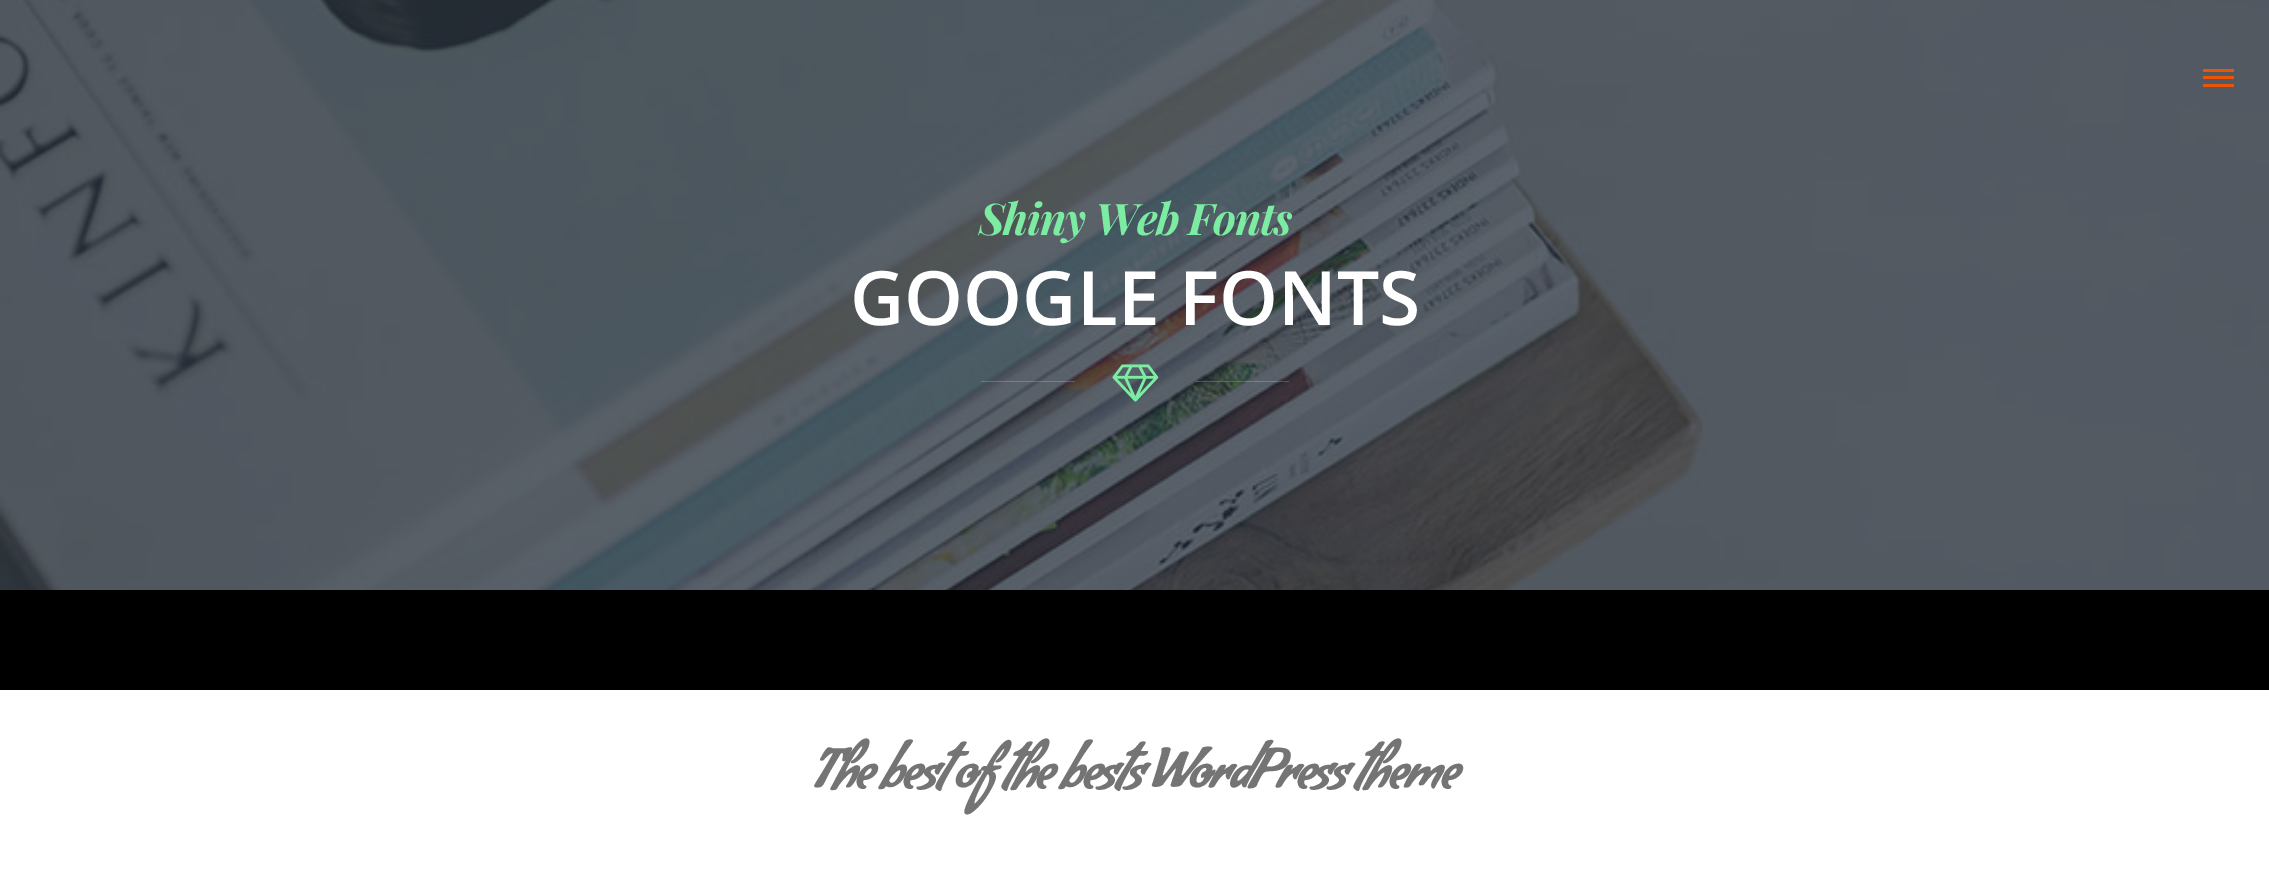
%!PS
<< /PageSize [2269 891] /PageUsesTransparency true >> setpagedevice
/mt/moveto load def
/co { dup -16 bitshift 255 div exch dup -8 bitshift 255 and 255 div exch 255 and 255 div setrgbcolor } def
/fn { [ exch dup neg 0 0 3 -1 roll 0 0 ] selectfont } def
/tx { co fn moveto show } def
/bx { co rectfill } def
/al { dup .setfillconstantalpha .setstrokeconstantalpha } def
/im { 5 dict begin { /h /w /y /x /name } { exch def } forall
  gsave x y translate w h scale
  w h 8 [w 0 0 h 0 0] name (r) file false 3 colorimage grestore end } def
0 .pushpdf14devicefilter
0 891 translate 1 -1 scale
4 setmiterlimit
0 0 2269 891 16#000000 bx
(media/1.raw) 0 0 2269 590 im
2203 76 31 3 16#EB5505 bx
2203 69 31 3 16#EB5505 bx
2203 84 31 3 16#EB5505 bx
0.2 al
981 381 94 1 16#FFFFFF bx
1 al
(media/2.raw) 1112 364 47 38 im
0.2 al
1195 381 94 1 16#FFFFFF bx
1 al
0 690 2269 201 16#FFFFFF bx
/PlayfairDisplay-BoldItalic 43.75 fn
16#7BECA2 co
979 235 mt -1.25 0 (Shiny Web Fonts) ashow
(GOOGLE FONTS) 850 325 /OpenSans-SemiBold 75 16#FFFFFF tx
/Condiment-Bold 52.5 fn
16#747474 co
813 786 mt -1.25 0 (The best of the bests WordPress theme) ashow
.poppdf14devicefilter showpage
